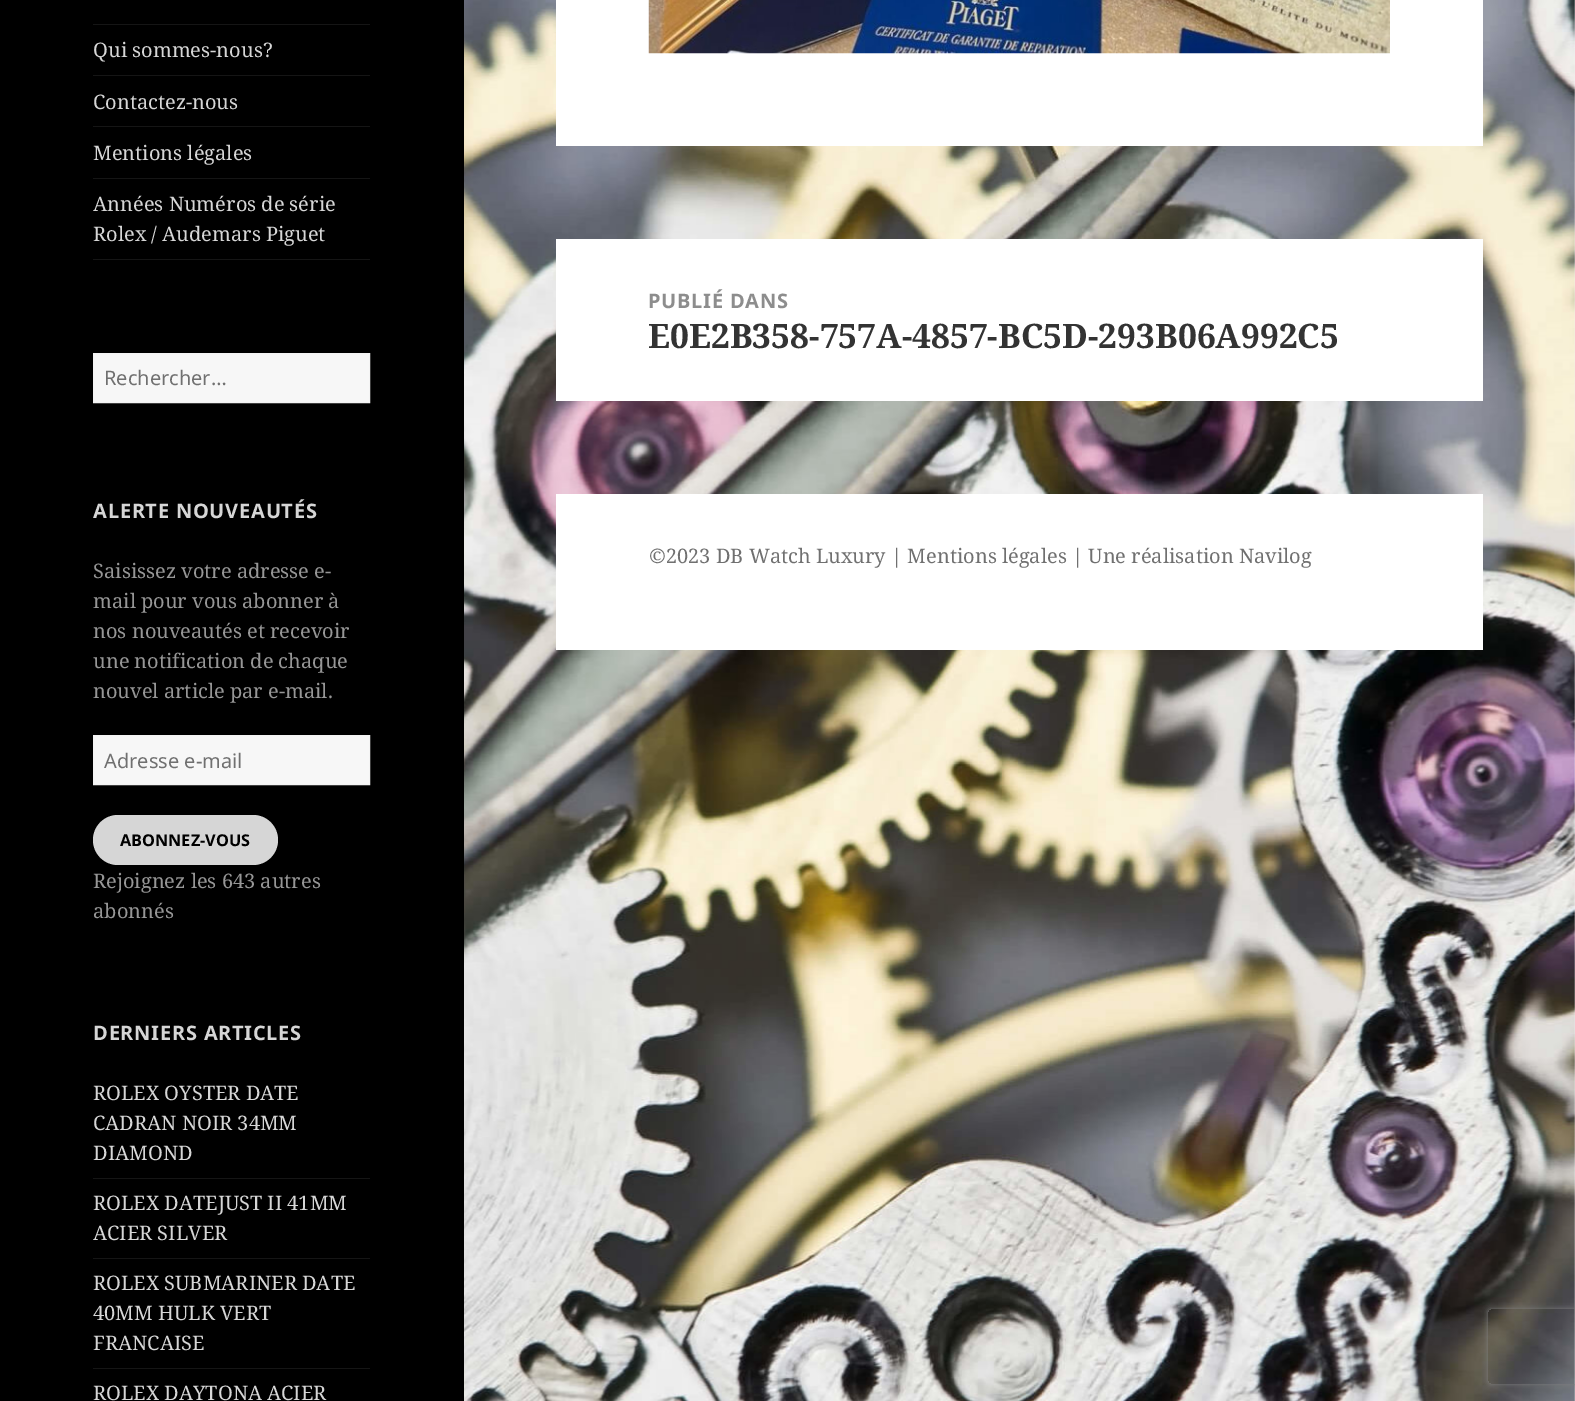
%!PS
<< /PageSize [1575 1401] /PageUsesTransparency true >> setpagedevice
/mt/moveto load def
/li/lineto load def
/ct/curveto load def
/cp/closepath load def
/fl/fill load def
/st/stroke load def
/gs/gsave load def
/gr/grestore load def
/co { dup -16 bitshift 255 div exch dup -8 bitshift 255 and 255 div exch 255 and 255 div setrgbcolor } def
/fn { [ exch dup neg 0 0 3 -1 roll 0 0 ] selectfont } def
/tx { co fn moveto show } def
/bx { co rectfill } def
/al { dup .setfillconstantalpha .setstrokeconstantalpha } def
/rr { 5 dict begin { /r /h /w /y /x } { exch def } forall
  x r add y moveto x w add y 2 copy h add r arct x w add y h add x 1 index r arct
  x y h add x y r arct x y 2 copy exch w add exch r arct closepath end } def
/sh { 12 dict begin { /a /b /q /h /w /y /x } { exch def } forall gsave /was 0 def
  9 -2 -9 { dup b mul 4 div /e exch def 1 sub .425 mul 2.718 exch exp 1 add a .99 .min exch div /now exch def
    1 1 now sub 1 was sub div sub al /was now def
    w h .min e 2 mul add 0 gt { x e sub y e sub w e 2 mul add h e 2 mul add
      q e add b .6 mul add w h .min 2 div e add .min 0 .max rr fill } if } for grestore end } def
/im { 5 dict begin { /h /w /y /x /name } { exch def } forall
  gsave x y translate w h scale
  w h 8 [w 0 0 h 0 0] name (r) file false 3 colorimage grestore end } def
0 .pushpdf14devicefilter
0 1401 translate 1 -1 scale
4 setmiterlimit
0 0 1575 1401 16#FFFFFF bx
(media/1.raw) 464 0 1111 1401 im
0 0 464 1401 16#000000 bx
93 259 277 1 16#151515 bx
93 24 277 1 16#151515 bx
93 75 277 1 16#151515 bx
93 126 277 1 16#151515 bx
93 178 277 1 16#151515 bx
16#F7F7F7 co
93.5 353.5 mt 369.5 353.5 li 369.5 402.5 li 93.5 402.5 li cp gs fl gr
16#F4F4F4 co
st
16#F7F7F7 co
93.5 735.5 mt 369.5 735.5 li 369.5 784.5 li 93.5 784.5 li cp gs fl gr
16#F4F4F4 co
st
16#D6D6D6 co
93 815 185 50 25 rr fl
93 1178 277 1 16#151515 bx
93 1258 277 1 16#151515 bx
93 1368 277 1 16#151515 bx
556 0 927 146 16#FFFFFF bx
(media/2.raw) 648 0 742 54 im
556 239 927 162 16#FFFFFF bx
556 494 927 156 16#FFFFFF bx
gs
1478 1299 mt 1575 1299 li 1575 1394 li 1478 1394 li cp 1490.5 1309 mt 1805.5 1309 li 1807 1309 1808 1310 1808 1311.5 ct 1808 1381.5 li 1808 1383 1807 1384 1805.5 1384 ct 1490.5 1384 li 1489 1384 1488 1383 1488 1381.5 ct 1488 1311.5 li 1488 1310 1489 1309 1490.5 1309 ct cp eoclip newpath
16#808080 co
1488 1309 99 75 2.5 3 1 sh
gr
(Qui sommes-nous?) 93 57 /NotoSerif-Regular 20 16#D6D6D6 tx
(Contactez-nous) 93 109 /NotoSerif-Regular 20 16#D6D6D6 tx
(Mentions légales) 93 160 /NotoSerif-Regular 20 16#D6D6D6 tx
(Années Numéros de série) 93 211 /NotoSerif-Regular 20 16#D6D6D6 tx
(Rolex / Audemars Piguet) 93 241 /NotoSerif-Regular 20 16#D6D6D6 tx
(Rechercher…) 104 385 /NotoSans-Regular 20 16#707070 tx
/NotoSans-Bold 20 fn
16#D6D6D6 co
93 518 mt .75 0 (ALERTE NOUVEAUTÉS) ashow
(Saisissez votre adresse e-) 93 578 /NotoSerif-Regular 20 16#969696 tx
(mail pour vous abonner à) 93 608 /NotoSerif-Regular 20 16#969696 tx
(nos nouveautés et recevoir) 93 638 /NotoSerif-Regular 20 16#969696 tx
(une notification de chaque) 93 668 /NotoSerif-Regular 20 16#969696 tx
(nouvel article par e-mail.) 93 698 /NotoSerif-Regular 20 16#969696 tx
(Adresse e-mail) 104 768 /NotoSans-Regular 20 16#707070 tx
(ABONNEZ-VOUS) 120 846 /NotoSans-Bold 16.25 16#000000 tx
(Rejoignez les 643 autres) 93 888 /NotoSerif-Regular 20 16#969696 tx
(abonnés) 93 918 /NotoSerif-Regular 20 16#969696 tx
/NotoSans-Bold 20 fn
16#D6D6D6 co
93 1040 mt .75 0 (DERNIERS ARTICLES) ashow
(ROLEX OYSTER DATE) 93 1100 /NotoSerif-Regular 20 16#D6D6D6 tx
(CADRAN NOIR 34MM) 93 1130 /NotoSerif-Regular 20 16#D6D6D6 tx
(DIAMOND) 93 1160 /NotoSerif-Regular 20 16#D6D6D6 tx
(ROLEX DATEJUST II 41MM) 93 1210 /NotoSerif-Regular 20 16#D6D6D6 tx
(ACIER SILVER) 93 1240 /NotoSerif-Regular 20 16#D6D6D6 tx
(ROLEX SUBMARINER DATE) 93 1290 /NotoSerif-Regular 20 16#D6D6D6 tx
(40MM HULK VERT) 93 1320 /NotoSerif-Regular 20 16#D6D6D6 tx
(FRANCAISE) 93 1350 /NotoSerif-Regular 20 16#D6D6D6 tx
(ROLEX DAYTONA ACIER) 93 1400 /NotoSerif-Regular 20 16#D6D6D6 tx
/NotoSans-Bold 20 fn
16#8D8D8D co
648 308 mt .75 0 (PUBLIÉ DANS) ashow
(E0E2B358-757A-4857-BC5D-293B06A992C5) 648 348 /NotoSerif-Bold 33.75 16#333333 tx
(©2023 DB Watch Luxury | Mentions légales | Une réalisation Navilog) 649 563 /NotoSerif-Regular 20 16#707070 tx
.poppdf14devicefilter showpage
